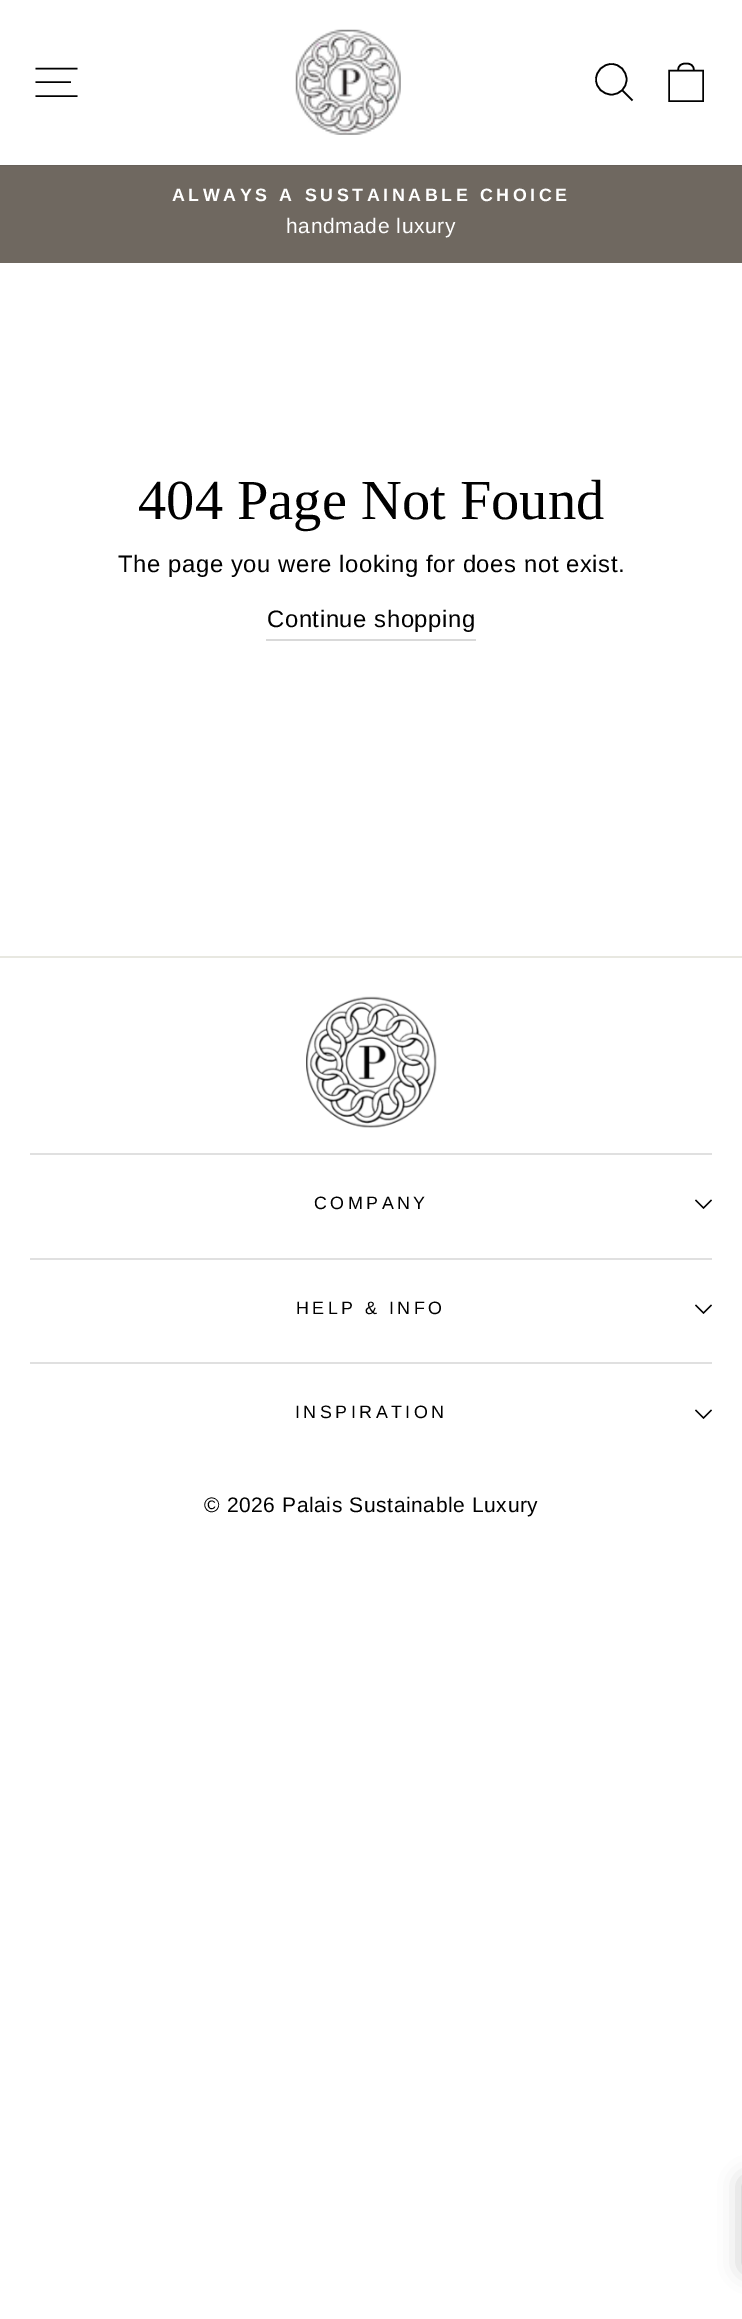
%!PS
<< /PageSize [742 2319] /PageUsesTransparency true >> setpagedevice
/mt/moveto load def
/li/lineto load def
/ct/curveto load def
/cp/closepath load def
/st/stroke load def
/lw/setlinewidth load def
/co { dup -16 bitshift 255 div exch dup -8 bitshift 255 and 255 div exch 255 and 255 div setrgbcolor } def
/fn { [ exch dup neg 0 0 3 -1 roll 0 0 ] selectfont } def
/tx { co fn moveto show } def
/bx { co rectfill } def
/al { dup .setfillconstantalpha .setstrokeconstantalpha } def
/rr { 5 dict begin { /r /h /w /y /x } { exch def } forall
  x r add y moveto x w add y 2 copy h add r arct x w add y h add x 1 index r arct
  x y h add x y r arct x y 2 copy exch w add exch r arct closepath end } def
/sh { 12 dict begin { /a /b /q /h /w /y /x } { exch def } forall gsave /was 0 def
  9 -2 -9 { dup b mul 4 div /e exch def 1 sub .425 mul 2.718 exch exp 1 add a .99 .min exch div /now exch def
    1 1 now sub 1 was sub div sub al /was now def
    w h .min e 2 mul add 0 gt { x e sub y e sub w e 2 mul add h e 2 mul add
      q e add b .6 mul add w h .min 2 div e add .min 0 .max rr fill } if } for grestore end } def
/im { 5 dict begin { /h /w /y /x /name } { exch def } forall
  gsave x y translate w h scale
  w h 8 [w 0 0 h 0 0] name (r) file false 3 colorimage grestore end } def
0 .pushpdf14devicefilter
0 2319 translate 1 -1 scale
4 setmiterlimit
0 0 742 2319 16#FFFFFF bx
0 165 742 98 16#6F6860 bx
16#000000 co
0 0 742 165 0 1 .2 sh
0 0 742 165 16#FFFFFF bx
16#000000 co
1.6 lw
35.5 68.5 mt 77.5 68.5 li 35.5 82 mt 71 82 li 35.5 96 mt 77.5 96 li st
(media/1.raw) 295 29 106 106 im
626.5 79.5 mt 626.5 88 620 94.5 611.5 94.5 ct 603 94.5 596 88 596 79.5 ct 596 71 603 64 611.5 64 ct 620 64 626.5 71 626.5 79.5 ct cp 632.5 100.5 mt 622.5 90.5 li st
669 70.5 mt 703 70.5 li 703 101 li 669 101 li cp 678 71 mt 678 65 681.5 63.5 686 63.5 ct 690.5 63.5 694 65 694 71 ct st
266 639 210 2 16#D9D9D9 bx
0 956 742 2 16#E8E8E1 bx
(media/2.raw) 306 996 131 132 im
30 1153 682 2 16#E0E0E0 bx
16#000000 co
1.2 lw
695.5 1200 mt 703.5 1208 li 711.5 1200 li st
30 1258 682 2 16#E0E0E0 bx
16#000000 co
695.5 1305 mt 703.5 1313 li 711.5 1305 li st
30 1362 682 2 16#E0E0E0 bx
16#000000 co
695.5 1410 mt 703.5 1418 li 711.5 1410 li st
16#757575 co
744 2181 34 87 0 12 .5 sh
/LiberationSans-Bold 17.85 fn
16#FFFFFF co
172 201 mt 3.6 0 (ALWAYS A SUSTAINABLE CHOICE) ashow
/LiberationSans-Regular 21 fn
286 233 mt .6 0 (handmade luxury) ashow
(404 Page Not Found) 138 519 /LiberationSerif-Regular 56.5 16#000000 tx
/LiberationSans-Regular 23.8 fn
118 572 mt .6 0 (The page you were looking for does not exist.) ashow
267 627 mt .6 0 (Continue shopping) ashow
/LiberationSans-Regular 17.85 fn
314 1209 mt 3.5 0 (COMPANY) ashow
296 1314 mt 3.5 0 (HELP & INFO) ashow
295 1418 mt 3.5 0 (INSPIRATION) ashow
/LiberationSans-Regular 21 fn
204 1512 mt .6 0 (© 2026 Palais Sustainable Luxury) ashow
.poppdf14devicefilter showpage
